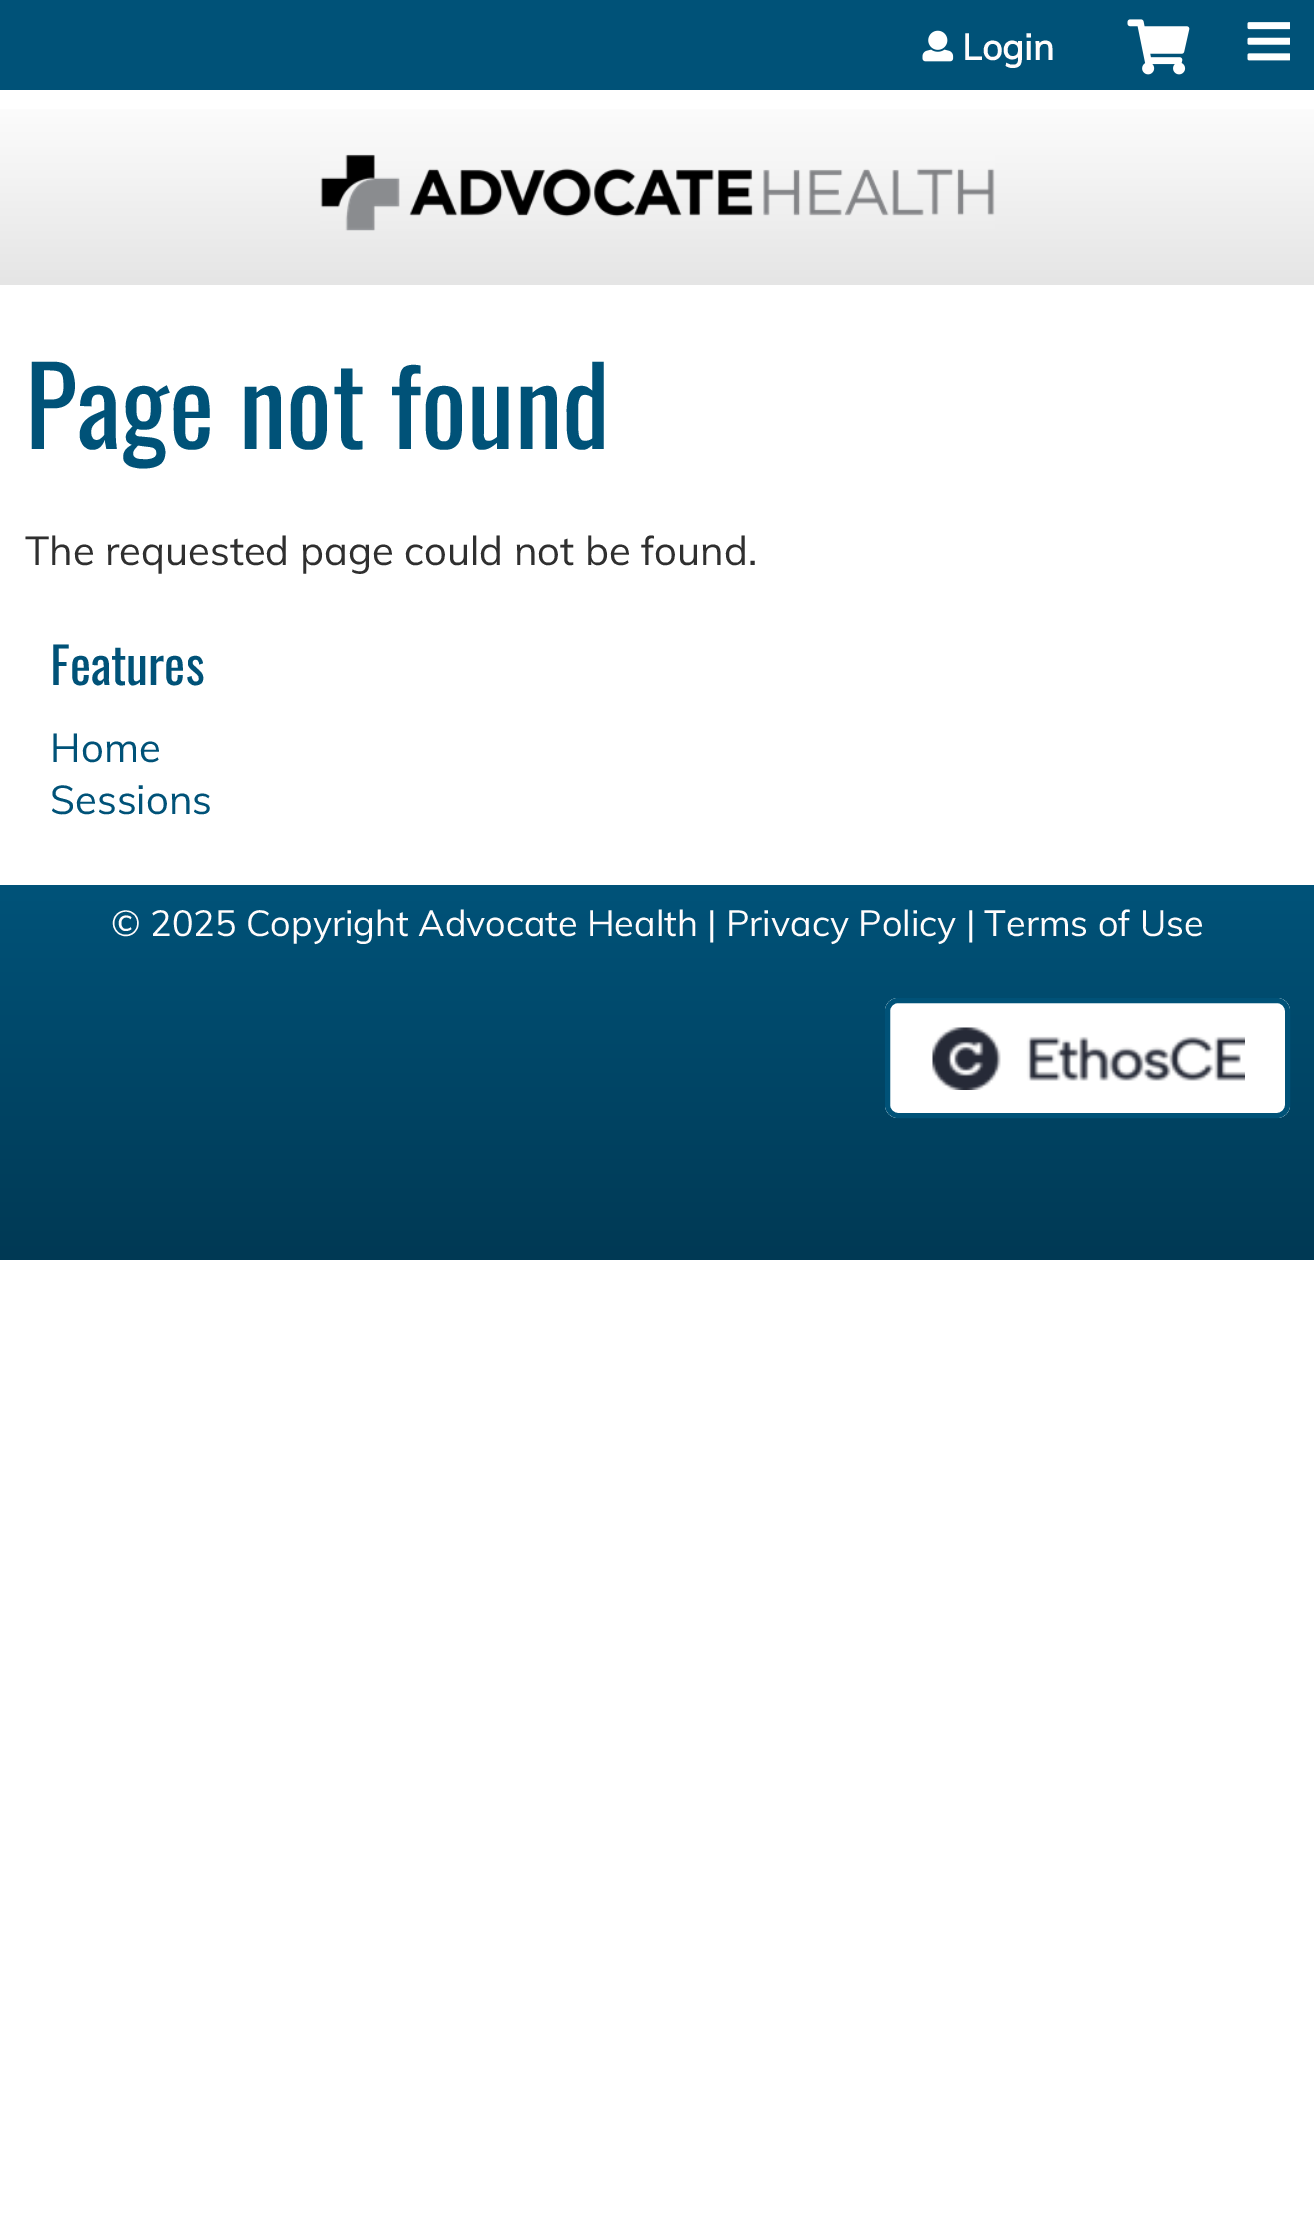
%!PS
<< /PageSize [1314 2216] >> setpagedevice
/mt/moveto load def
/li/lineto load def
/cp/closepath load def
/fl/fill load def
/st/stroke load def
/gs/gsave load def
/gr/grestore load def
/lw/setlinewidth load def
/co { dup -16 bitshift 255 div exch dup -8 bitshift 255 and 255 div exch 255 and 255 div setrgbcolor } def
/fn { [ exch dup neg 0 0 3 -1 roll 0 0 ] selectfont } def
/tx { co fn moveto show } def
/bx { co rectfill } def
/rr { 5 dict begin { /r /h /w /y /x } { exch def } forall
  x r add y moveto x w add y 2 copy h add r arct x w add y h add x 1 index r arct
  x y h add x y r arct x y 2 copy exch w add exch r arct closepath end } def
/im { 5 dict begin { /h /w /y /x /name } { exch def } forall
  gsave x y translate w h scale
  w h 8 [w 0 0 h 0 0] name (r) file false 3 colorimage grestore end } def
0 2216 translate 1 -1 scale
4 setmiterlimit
0 0 1314 2216 16#FFFFFF bx
gs 0 109 mt 1314 109 li 1314 285 li 0 285 li cp clip newpath
<< /ShadingType 2 /ColorSpace /DeviceRGB /Coords [658 285 658 90] /Extend [true true] /Function << /FunctionType 2 /Domain [0 1] /C0 [.898 .898 .898] /C1 [1 1 1] /N 1 >> >> shfill gr
0 0 1314 90 16#005278 bx
(media/1.raw) 922 30 32 32 im
(media/2.raw) 1127 19 63 56 im
(media/3.raw) 1247 22 43 39 im
(media/4.raw) 320 154 675 77 im
gs 0 900 mt 1314 900 li 1314 1260 li 0 1260 li cp clip newpath
<< /ShadingType 2 /ColorSpace /DeviceRGB /Coords [658 1260 658 900] /Extend [true true] /Function << /FunctionType 2 /Domain [0 1] /C0 [0 .224 .329] /C1 [0 .322 .471] /N 1 >> >> shfill gr
0 885 1314 15 16#005278 bx
16#FFFFFF co
885 998 405 120 13 rr fl
(media/5.raw) 932 1027 313 63 im
16#005278 co
5 lw
887.5 1000.5 400 115 10.5 rr st
(Login) 962 60 /Muli-Bold 36 16#FFFCFC tx
(Page not found) 25 449 /Oswald-Regular 108 16#005278 tx
(The requested page could not be found.) 25 565 /Muli-Regular 40 16#2F2F2F tx
(Features) 50 685 /Oswald-Regular 50 16#005278 tx
(Home) 50 762 /Muli-Regular 40 16#005278 tx
(Sessions) 50 814 /Muli-Regular 40 16#005278 tx
(© 2025 Copyright Advocate Health |) 111 936 /Muli-Regular 36 16#FFFCFC tx
(Privacy Policy | Terms of Use) 726 936 /Muli-Regular 36 16#FFFCFC tx
showpage
